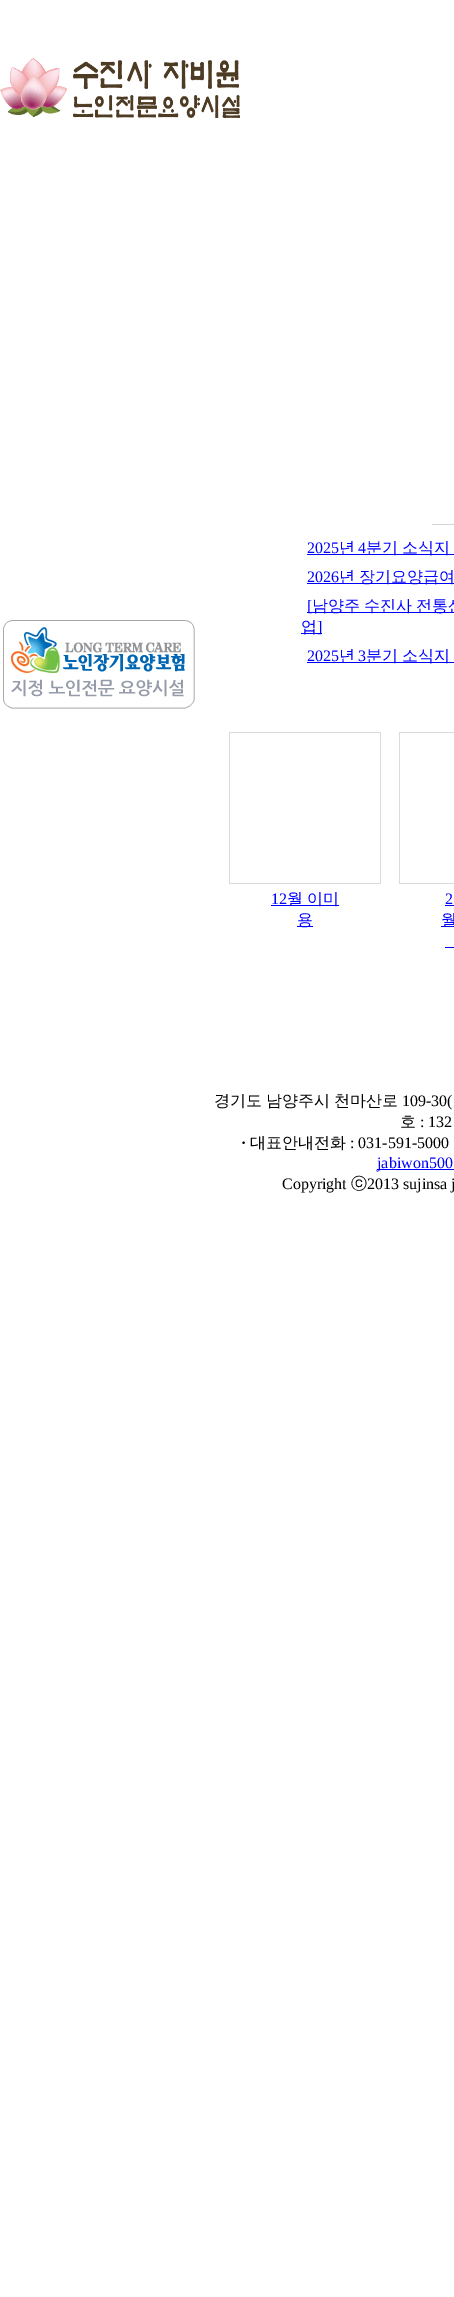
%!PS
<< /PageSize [454 2297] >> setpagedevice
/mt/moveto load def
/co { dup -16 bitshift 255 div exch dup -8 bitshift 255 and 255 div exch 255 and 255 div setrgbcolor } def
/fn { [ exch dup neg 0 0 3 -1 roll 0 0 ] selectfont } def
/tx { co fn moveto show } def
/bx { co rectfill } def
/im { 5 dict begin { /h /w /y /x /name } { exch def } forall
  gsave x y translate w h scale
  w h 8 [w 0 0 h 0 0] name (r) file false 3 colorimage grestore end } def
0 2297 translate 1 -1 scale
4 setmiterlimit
0 0 454 2297 16#FFFFFF bx
(media/1.raw) 0 58 240 60 im
(media/2.raw) 3 620 192 89 im
432 524 22 1 16#D4D4D4 bx
307 554 147 1 16#0000FF bx
307 583 147 1 16#0000FF bx
307 612 147 1 16#0000FF bx
301 633 21 1 16#0000FF bx
307 662 147 1 16#0000FF bx
229 732 152 152 16#DBDBDB bx
230 733 150 150 16#FFFFFF bx
271 905 68 1 16#0000FF bx
297 926 16 1 16#0000FF bx
399 732 55 152 16#DBDBDB bx
400 733 54 150 16#FFFFFF bx
445 905 9 1 16#0000FF bx
441 926 13 1 16#0000FF bx
445 947 9 1 16#0000FF bx
377 1169 77 1 16#0000FF bx
(2025) 307 553 /LiberationSerif-Regular 16 16#0000FF tx
(년) 339 553 /WenQuanYiZenHei-Medium 16 16#0000FF tx
(4) 358 553 /LiberationSerif-Regular 16 16#0000FF tx
/WenQuanYiZenHei-Medium 16 fn
366 553 mt -1 0 32 (분기 소식지) widthshow
(2026) 307 582 /LiberationSerif-Regular 16 16#0000FF tx
/WenQuanYiZenHei-Medium 16 fn
339 582 mt -1 0 32 (년 장기요양급여) widthshow
([) 307 611 /LiberationSerif-Regular 16 16#0000FF tx
/WenQuanYiZenHei-Medium 16 fn
312 611 mt -1 0 32 (남양주 수진사 전통산) widthshow
(업) 301 632 /WenQuanYiZenHei-Medium 16 16#0000FF tx
(]) 317 632 /LiberationSerif-Regular 16 16#0000FF tx
(2025) 307 661 /LiberationSerif-Regular 16 16#0000FF tx
(년) 339 661 /WenQuanYiZenHei-Medium 16 16#0000FF tx
(3) 358 661 /LiberationSerif-Regular 16 16#0000FF tx
/WenQuanYiZenHei-Medium 16 fn
366 661 mt -1 0 32 (분기 소식지) widthshow
(12) 271 904 /LiberationSerif-Regular 16 16#0000FF tx
/WenQuanYiZenHei-Medium 16 fn
287 904 mt -1 0 32 (월 이미) widthshow
(용) 297 925 /WenQuanYiZenHei-Medium 16 16#0000FF tx
(2) 445 904 /LiberationSerif-Regular 16 16#0000FF tx
/WenQuanYiZenHei-Medium 16 fn
441 925 mt -1 0 32 (월) widthshow
16#000000 co
214 1106 mt -1 0 32 (경기도 남양주시 천마산로) widthshow
(109-30\() 402 1106 /LiberationSerif-Regular 16 16#000000 tx
(호) 400 1127 /WenQuanYiZenHei-Medium 16 16#000000 tx
(: 132) 420 1127 /LiberationSerif-Regular 16 16#000000 tx
(·) 241 1148 /LiberationSerif-Bold 16 16#000000 tx
(대표안내전화) 250 1148 /WenQuanYiZenHei-Medium 16 16#000000 tx
(: 031-591-5000) 350 1148 /LiberationSerif-Regular 16 16#000000 tx
(jabiwon500) 377 1168 /LiberationSerif-Regular 16 16#0000FF tx
(Copyright) 282 1189 /LiberationSerif-Regular 16 16#000000 tx
(ⓒ) 351 1189 /WenQuanYiZenHei-Medium 16 16#000000 tx
(2013 sujinsa j) 367 1189 /LiberationSerif-Regular 16 16#000000 tx
showpage
